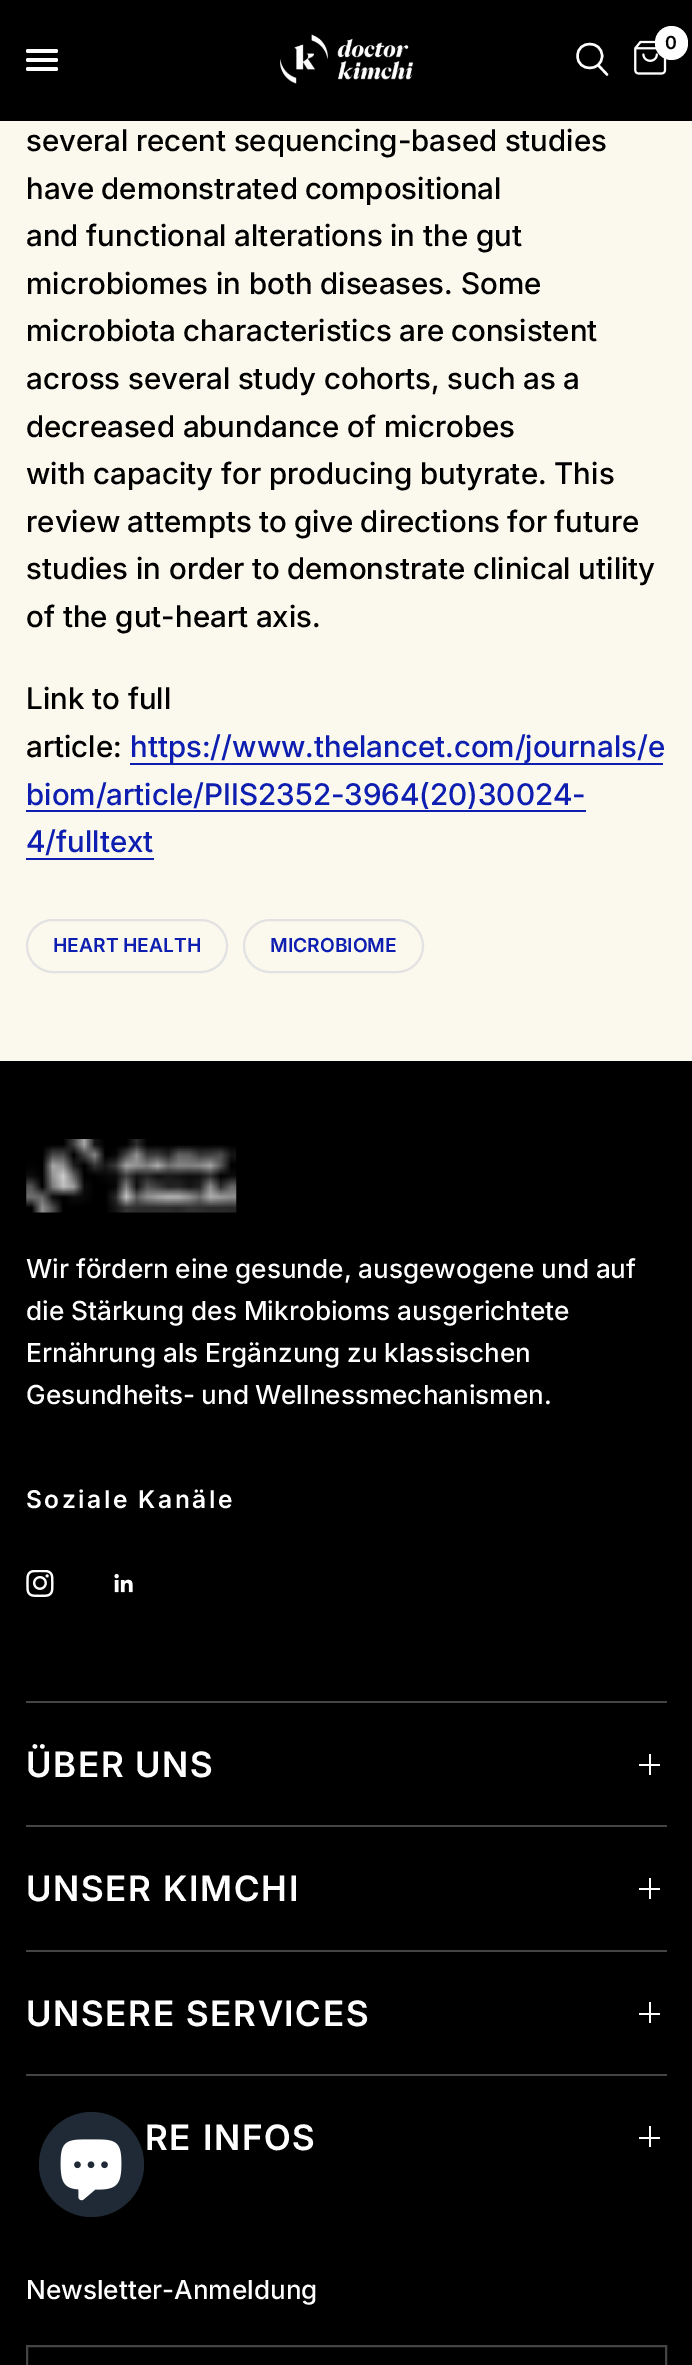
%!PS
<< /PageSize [692 2365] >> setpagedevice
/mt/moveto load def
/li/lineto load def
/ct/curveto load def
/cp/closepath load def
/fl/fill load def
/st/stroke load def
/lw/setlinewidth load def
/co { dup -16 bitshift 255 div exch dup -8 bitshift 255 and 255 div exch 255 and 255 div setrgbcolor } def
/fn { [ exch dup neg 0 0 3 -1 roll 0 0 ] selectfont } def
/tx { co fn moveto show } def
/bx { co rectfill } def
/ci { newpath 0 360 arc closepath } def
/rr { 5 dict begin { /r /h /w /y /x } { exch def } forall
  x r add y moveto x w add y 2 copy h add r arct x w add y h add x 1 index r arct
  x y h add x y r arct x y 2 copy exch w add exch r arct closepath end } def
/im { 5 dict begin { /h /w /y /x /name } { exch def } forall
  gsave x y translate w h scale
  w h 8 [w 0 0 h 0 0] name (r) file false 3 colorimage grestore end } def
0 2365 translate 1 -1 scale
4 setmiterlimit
0 0 692 2365 16#FBF9EE bx
0 0 692 121 16#000000 bx
(media/1.raw) 280 34 134 50 im
16#FFFFFF co
2.4 lw
1 setlinecap
1 setlinejoin
598.5 65.5 mt 607 74.5 li 602 56 mt 602 72 577.5 72 577.5 56 ct 577.5 40 602 40 602 56 ct cp st
(media/2.raw) 634 40 33 35 im
655 26 33 34 16.5 rr fl
26 49 32 4 2 rr fl
26 58 32 4 2 rr fl
26 67 32 4 2 rr fl
130 763 533 2 16#0D1EB0 bx
26 810 560 2 16#0D1EB0 bx
26 858 128 2 16#0D1EB0 bx
16#E2E2E2 co
2 lw
0 setlinecap
0 setlinejoin
27 920 200 52 26 rr st
244 920 179 52 26 rr st
0 1061 692 1304 16#000000 bx
(media/3.raw) 26 1139 211 74 im
(media/4.raw) 26 1570 28 27 im
(media/5.raw) 114 1573 19 20 im
26 1701 641 2 16#444444 bx
649 1754 2 21 16#FFFFFF bx
639 1764 21 2 16#FFFFFF bx
26 1825 641 2 16#444444 bx
649 1878 2 21 16#FFFFFF bx
639 1888 21 2 16#FFFFFF bx
26 1950 641 2 16#444444 bx
649 2002 2 21 16#FFFFFF bx
639 2013 21 2 16#FFFFFF bx
26 2074 641 2 16#444444 bx
649 2126 2 21 16#FFFFFF bx
639 2137 21 2 16#FFFFFF bx
16#444444 co
27 2346 639 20 rectstroke
16#202A36 co
91.5 2164.5 52.5 ci fl
(media/6.raw) 60 2139 62 62 im
(0) 665 49 /Inter-SemiBold 18 16#000000 tx
/Inter-Medium 29.75 fn
26 151 mt -.5 0 32 (several recent sequencing-based studies) widthshow
26 199 mt -1 0 32 (have demonstrated compositional) widthshow
(and functional alterations in the gut) 26 246 /Inter-Medium 29.75 16#000000 tx
(microbiomes in both diseases. Some) 26 294 /Inter-Medium 29.75 16#000000 tx
(microbiota characteristics) 26 341 /Inter-Medium 29.75 16#000000 tx
399 341 mt -1 0 32 (are consistent) widthshow
26 389 mt -.25 0 32 (across several study cohorts, such as a) widthshow
(decreased abundance of microbes) 26 437 /Inter-Medium 29.75 16#000000 tx
(with capacity for producing butyrate. This) 26 484 /Inter-Medium 29.75 16#000000 tx
26 532 mt -.75 0 32 (review attempts to give directions for future) widthshow
(studies) 26 579 /Inter-Medium 29.75 16#000000 tx
(in order to) 136 579 /Inter-Medium 29.75 16#000000 tx
(demonstrate clinical utility) 287 579 /Inter-Medium 29.75 16#000000 tx
(of the gut-heart axis.) 26 627 /Inter-Medium 29.75 16#000000 tx
(Link to full) 26 709 /Inter-Medium 29.75 16#000000 tx
(article:) 26 757 /Inter-Medium 29.75 16#000000 tx
(https://www.thelancet.com/journals/e) 130 757 /Inter-Medium 29.75 16#0D1EB0 tx
(biom/article/PIIS2352-3964\(20\)30024-) 26 805 /Inter-Medium 29.75 16#0D1EB0 tx
(4/fulltext) 26 852 /Inter-Medium 29.75 16#0D1EB0 tx
(HEART HEALTH) 53 952 /Inter-SemiBold 19.25 16#0D1EB0 tx
(MICROBIOME) 270 952 /Inter-SemiBold 19.25 16#0D1EB0 tx
/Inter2-Medium 26.25 fn
16#FFFFFF co
26 1278 mt -.25 0 32 (Wir fördern eine gesunde, ausgewogene und auf) widthshow
(die Stärkung des Mikrobioms ausgerichtete) 26 1320 /Inter2-Medium 26.25 16#FFFFFF tx
(Ernährung als Ergänzung zu klassischen) 26 1362 /Inter2-Medium 26.25 16#FFFFFF tx
26 1404 mt -1 0 32 (Gesundheits- und Wellnessmechanismen.) widthshow
/Inter-SemiBold 24.5 fn
26 1508 mt 2.5 0 (Soziale Kanäle) ashow
/Inter2-SemiBold 35 fn
26 1777 mt 1.75 0 (ÜBER UNS) ashow
26 1901 mt 1.75 0 (UNSER KIMCHI) ashow
26 2026 mt 1.75 0 (UNSERE SERVICES) ashow
145 2150 mt 1.75 0 (RE INFOS) ashow
(Newsletter-Anmeldung) 26 2299 /Inter2-Medium 26.25 16#FFFFFF tx
showpage
